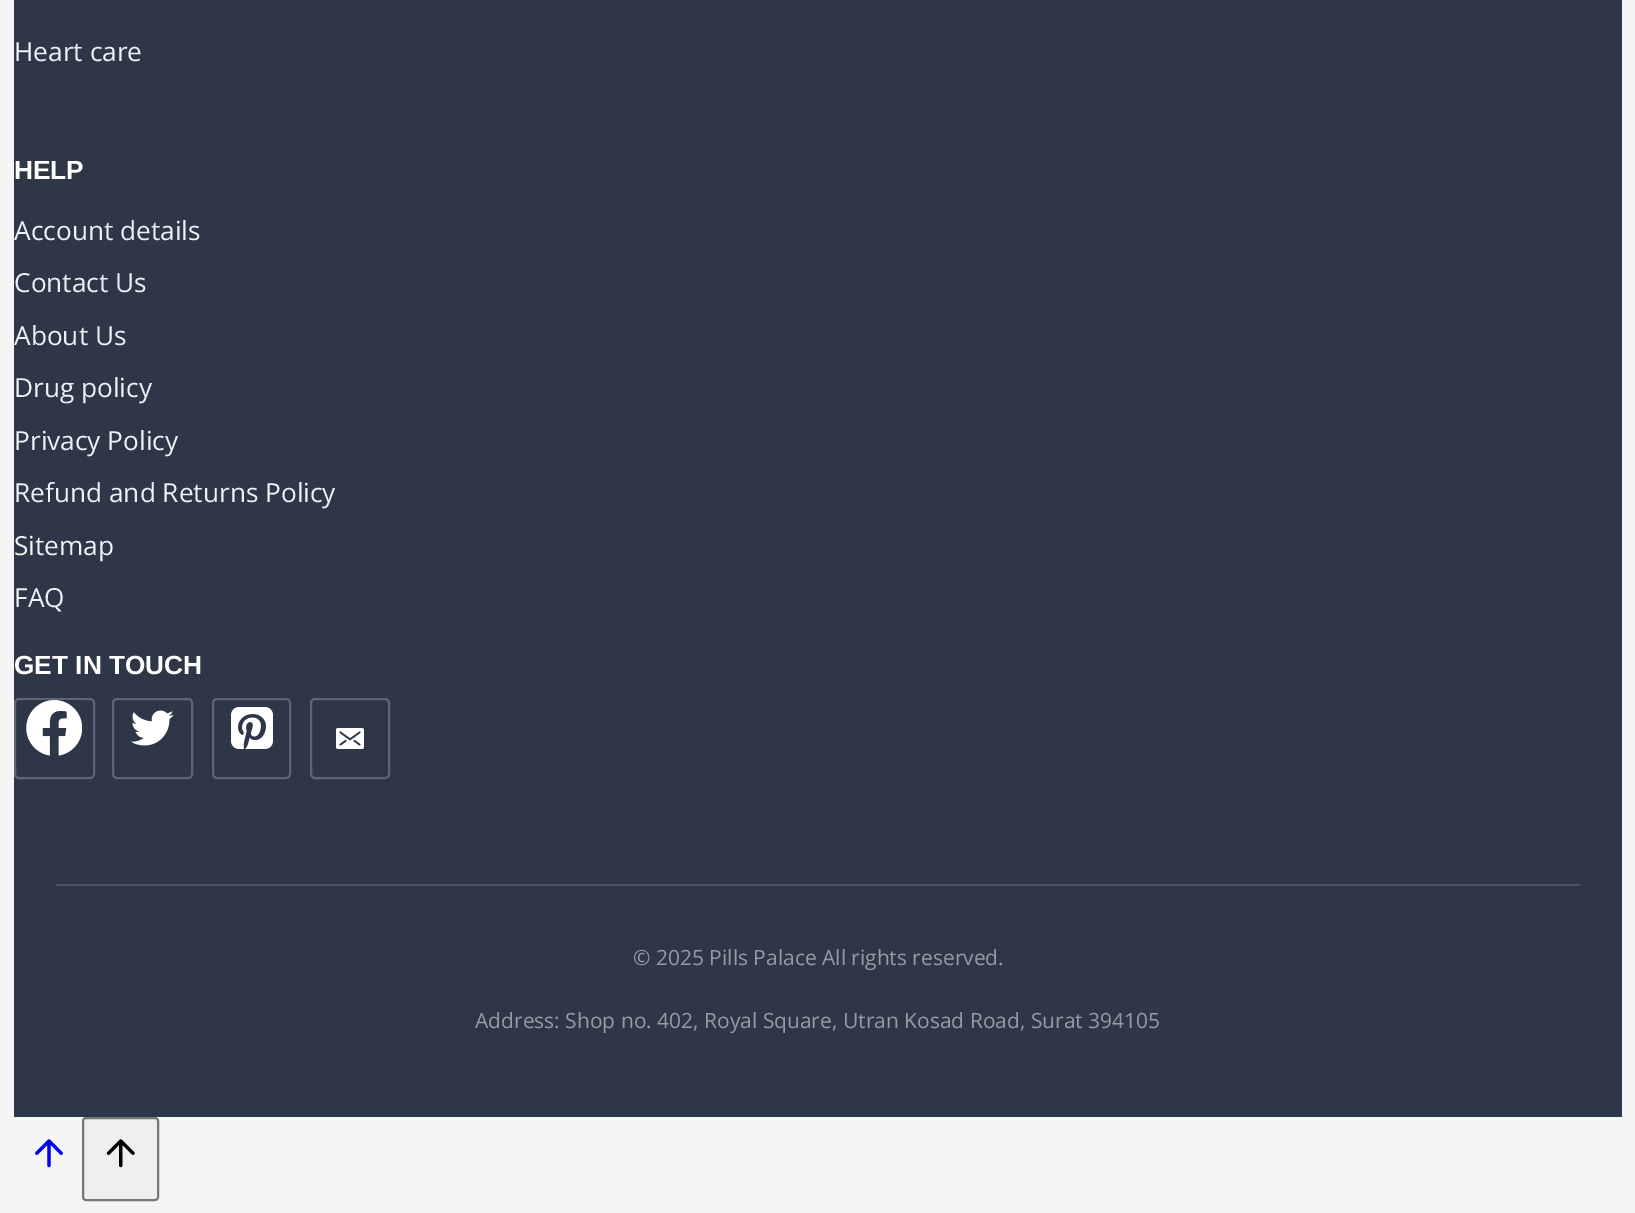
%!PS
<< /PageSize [1635 1213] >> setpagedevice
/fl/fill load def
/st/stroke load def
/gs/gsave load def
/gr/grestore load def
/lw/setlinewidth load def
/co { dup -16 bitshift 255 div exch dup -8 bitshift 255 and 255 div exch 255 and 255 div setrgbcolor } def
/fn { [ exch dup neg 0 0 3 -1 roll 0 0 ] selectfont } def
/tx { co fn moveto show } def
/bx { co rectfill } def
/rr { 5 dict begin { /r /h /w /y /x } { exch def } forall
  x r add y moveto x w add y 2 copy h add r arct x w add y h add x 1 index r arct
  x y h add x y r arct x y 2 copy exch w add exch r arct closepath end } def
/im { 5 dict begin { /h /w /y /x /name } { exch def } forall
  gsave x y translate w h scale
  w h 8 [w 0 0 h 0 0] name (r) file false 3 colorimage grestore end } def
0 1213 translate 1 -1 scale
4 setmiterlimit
0 0 1635 1213 16#F5F5F5 bx
14 0 1608 1117 16#2D3748 bx
16#5D6674 co
2 lw
15 699 79 79 4 rr st
(media/1.raw) 26 700 56 56 im
113 699 79 79 4 rr st
(media/2.raw) 130 710 44 36 im
213 699 77 79 4 rr st
(media/3.raw) 231 707 42 42 im
311 699 78 79 4 rr st
(media/4.raw) 336 728 28 21 im
56 884 1524 2 16#4A5362 bx
(media/5.raw) 35 1139 28 29 im
16#EFEFEF co
83 1118 75 82 3 rr gs fl gr
16#767676 co
st
(media/6.raw) 106 1139 29 29 im
(Heart care) 14 61 /OpenSans-Regular 26.25 16#EDF2F7 tx
(HELP) 14 179 /LiberationSans-Bold 26.25 16#FFFFFF tx
(Account details) 14 240 /OpenSans-Regular 26.25 16#EDF2F7 tx
(Contact Us) 14 292 /OpenSans-Regular 26.25 16#EDF2F7 tx
(About Us) 14 345 /OpenSans-Regular 26.25 16#EDF2F7 tx
(Drug policy) 14 397 /OpenSans-Regular 26.25 16#EDF2F7 tx
(Privacy Policy) 14 450 /OpenSans-Regular 26.25 16#EDF2F7 tx
(Refund and Returns Policy) 14 502 /OpenSans-Regular 26.25 16#EDF2F7 tx
(Sitemap) 14 555 /OpenSans-Regular 26.25 16#EDF2F7 tx
(FAQ) 14 607 /OpenSans-Regular 26.25 16#EDF2F7 tx
(GET IN TOUCH) 14 674 /LiberationSans-Bold 26.25 16#FFFFFF tx
(© 2025 Pills Palace All rights reserved.) 633 965 /OpenSans-Regular 21 16#969BA4 tx
(Address: Shop no. 402, Royal Square, Utran Kosad Road, Surat 394105) 475 1028 /OpenSans-Regular 21 16#969BA4 tx
showpage
